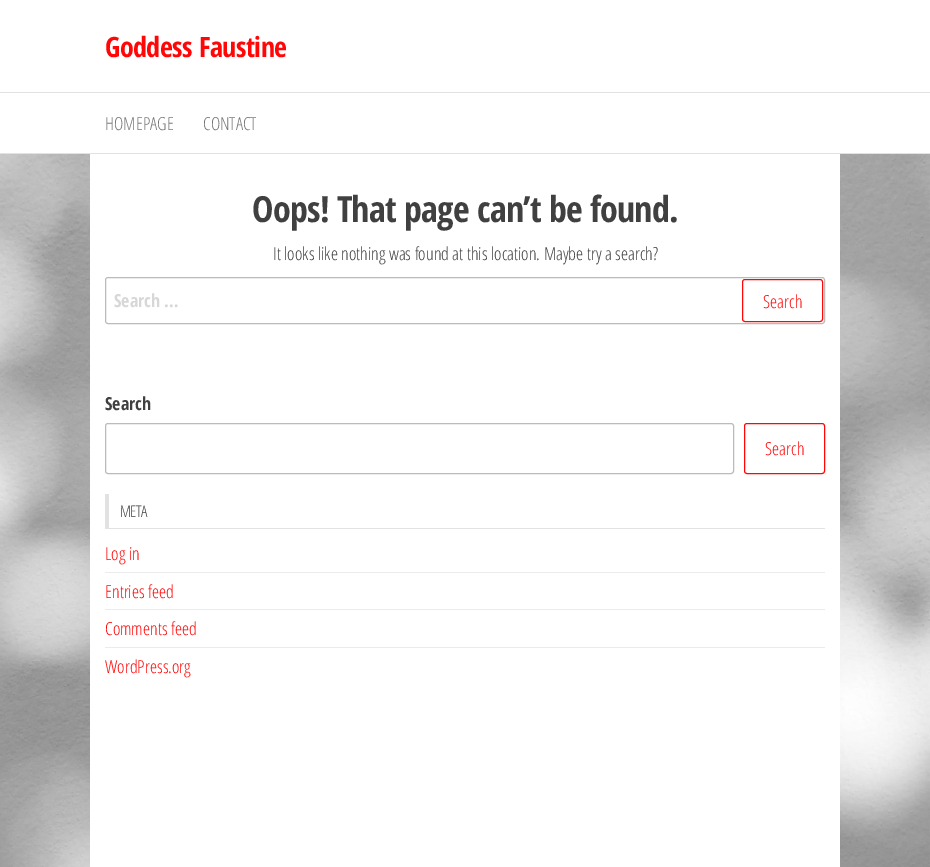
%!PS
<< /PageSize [930 867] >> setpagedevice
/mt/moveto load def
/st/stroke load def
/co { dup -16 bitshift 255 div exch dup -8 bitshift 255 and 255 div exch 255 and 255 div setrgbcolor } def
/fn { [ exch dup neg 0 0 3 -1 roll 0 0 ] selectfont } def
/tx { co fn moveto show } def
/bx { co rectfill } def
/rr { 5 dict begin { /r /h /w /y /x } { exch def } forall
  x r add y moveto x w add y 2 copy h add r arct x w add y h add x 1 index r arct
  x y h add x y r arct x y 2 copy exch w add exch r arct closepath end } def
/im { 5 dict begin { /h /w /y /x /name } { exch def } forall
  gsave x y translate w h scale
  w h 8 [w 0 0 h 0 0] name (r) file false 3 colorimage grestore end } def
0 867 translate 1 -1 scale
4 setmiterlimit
0 0 930 867 16#FFFFFF bx
(media/1.raw) 0 154 930 713 im
0 92 930 1 16#E2E2E2 bx
0 153 930 1 16#E2E2E2 bx
90 154 750 713 16#FFFFFF bx
16#BBBBBB co
105.5 277.5 719 46 2.5 rr st
16#FF0707 co
742.5 279.5 80 42 2.5 rr st
16#BBBBBB co
105.5 423.5 628 50 2.5 rr st
16#FF0707 co
744.5 423.5 80 50 2.5 rr st
105 528 720 1 16#E2E2E2 bx
105 494 4 34 16#E2E2E2 bx
105 572 720 1 16#EBEBEB bx
105 609 720 1 16#EBEBEB bx
105 647 720 1 16#EBEBEB bx
/OpenSansCondensed-Bold 28 fn
16#FF0707 co
105 57 mt -.5 0 (Goddess Faustine) ashow
(HOMEPAGE) 105 130 /OpenSansCondensed-Light 18 16#777777 tx
(CONTACT) 203 130 /OpenSansCondensed-Light 18 16#777777 tx
/OpenSansCondensed-Bold 36 fn
16#404040 co
252 222 mt -.75 0 (Oops! That page can’t be found.) ashow
(It looks like nothing was found at this location. Maybe try a search?) 273 260 /OpenSansCondensed-Light 18 16#404040 tx
(Search …) 114 307 /OpenSansCondensed-Bold 18 16#D7D7D7 tx
(Search) 763 308 /OpenSansCondensed-Light 18 16#FF0707 tx
(Search) 105 410 /OpenSansCondensed-Bold 18 16#404040 tx
(Search) 765 455 /OpenSansCondensed-Light 18 16#FF0707 tx
/OpenSansCondensed-Light 16 fn
16#404040 co
120 517 mt -.5 0 (META) ashow
(Log in) 105 560 /OpenSansCondensed-Light 18 16#FF0707 tx
(Entries feed) 105 598 /OpenSansCondensed-Light 18 16#FF0707 tx
(Comments feed) 105 635 /OpenSansCondensed-Light 18 16#FF0707 tx
(WordPress.org) 105 673 /OpenSansCondensed-Light 18 16#FF0707 tx
showpage
